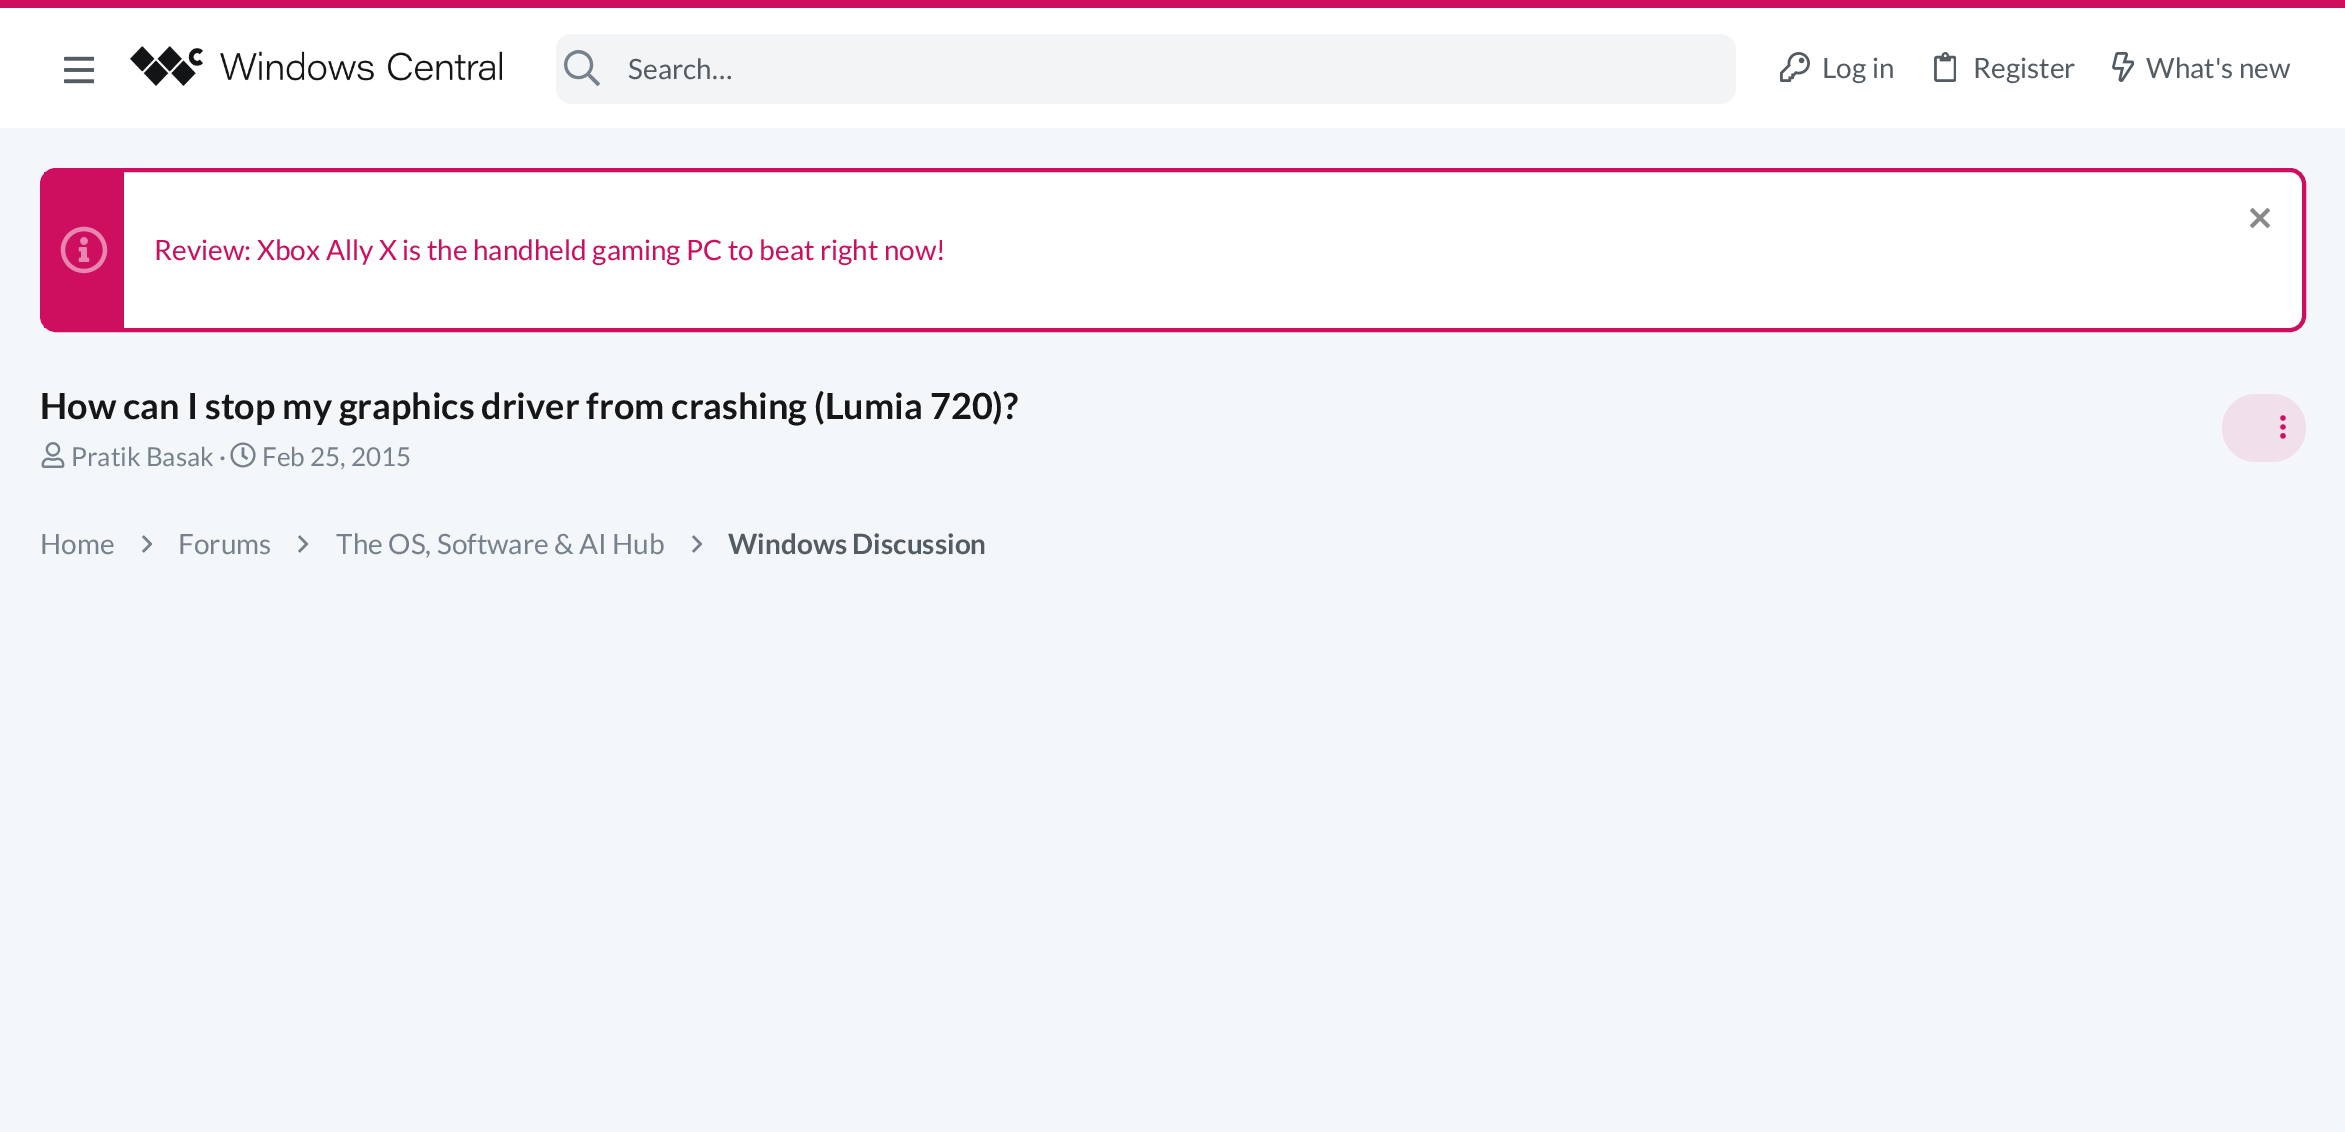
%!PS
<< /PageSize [2345 1132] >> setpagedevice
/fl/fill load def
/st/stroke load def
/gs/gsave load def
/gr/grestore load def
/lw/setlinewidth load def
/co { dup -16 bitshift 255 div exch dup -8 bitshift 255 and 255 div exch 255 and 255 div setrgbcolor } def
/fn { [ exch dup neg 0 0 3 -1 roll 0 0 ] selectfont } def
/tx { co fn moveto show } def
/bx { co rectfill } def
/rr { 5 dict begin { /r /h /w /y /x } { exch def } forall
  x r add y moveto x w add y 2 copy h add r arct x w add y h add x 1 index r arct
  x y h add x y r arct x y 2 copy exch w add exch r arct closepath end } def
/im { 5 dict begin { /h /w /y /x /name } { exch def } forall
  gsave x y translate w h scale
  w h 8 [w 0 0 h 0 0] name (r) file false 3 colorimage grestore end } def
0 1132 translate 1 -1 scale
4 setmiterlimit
0 0 2345 1132 16#F4F7F9 bx
0 8 2345 120 16#FFFFFF bx
0 0 2345 8 16#CE0E5F bx
(media/1.raw) 64 56 30 28 im
(media/2.raw) 130 46 372 40 im
16#F3F4F5 co
556 34 1180 70 16 rr fl
(media/3.raw) 564 50 36 36 im
(media/4.raw) 1780 52 30 30 im
(media/5.raw) 1934 52 22 30 im
(media/6.raw) 2112 52 22 30 im
16#FFFFFF co
42 170 2262 160 14 rr gs fl gr
16#CE0E5F co
4 lw
st
44 172 80 156 16#CE0E5F bx
(media/7.raw) 60 226 48 48 im
(media/8.raw) 2250 208 20 20 im
(media/9.raw) 41 442 24 26 im
(media/10.raw) 230 442 26 26 im
16#F0E0EA co
2222 394 84 68 34 rr fl
(media/11.raw) 2280 415 6 24 im
(media/12.raw) 142 535 10 18 im
(media/13.raw) 298 535 11 18 im
(media/12.raw) 692 535 10 18 im
(Search…) 628 79 /Lato-Regular 28 16#535B63 tx
(Log in) 1822 78 /Lato-Regular 28 16#535B63 tx
(Register) 1973 78 /Lato-Regular 28 16#535B63 tx
(What's new) 2146 78 /Lato-Regular 28 16#535B63 tx
(Review: Xbox Ally X is the handheld gaming PC to beat right now!) 154 260 /Lato-Regular 28 16#CE0E5F tx
(How can I stop my graphics driver from crashing \(Lumia 720\)?) 40 419 /Lato-Bold 36 16#141618 tx
(Pratik Basak ·) 71 466 /Lato-Regular 26 16#76818D tx
(Feb 25, 2015) 262 466 /Lato-Regular 26 16#76818D tx
(Home) 40 554 /Lato-Regular 28 16#76818D tx
(Forums) 178 554 /Lato-Regular 28 16#76818D tx
(The OS, Software & AI Hub) 336 554 /Lato-Regular 28 16#76818D tx
(Windows Discussion) 728 554 /Lato-Bold 28 16#535B63 tx
showpage
